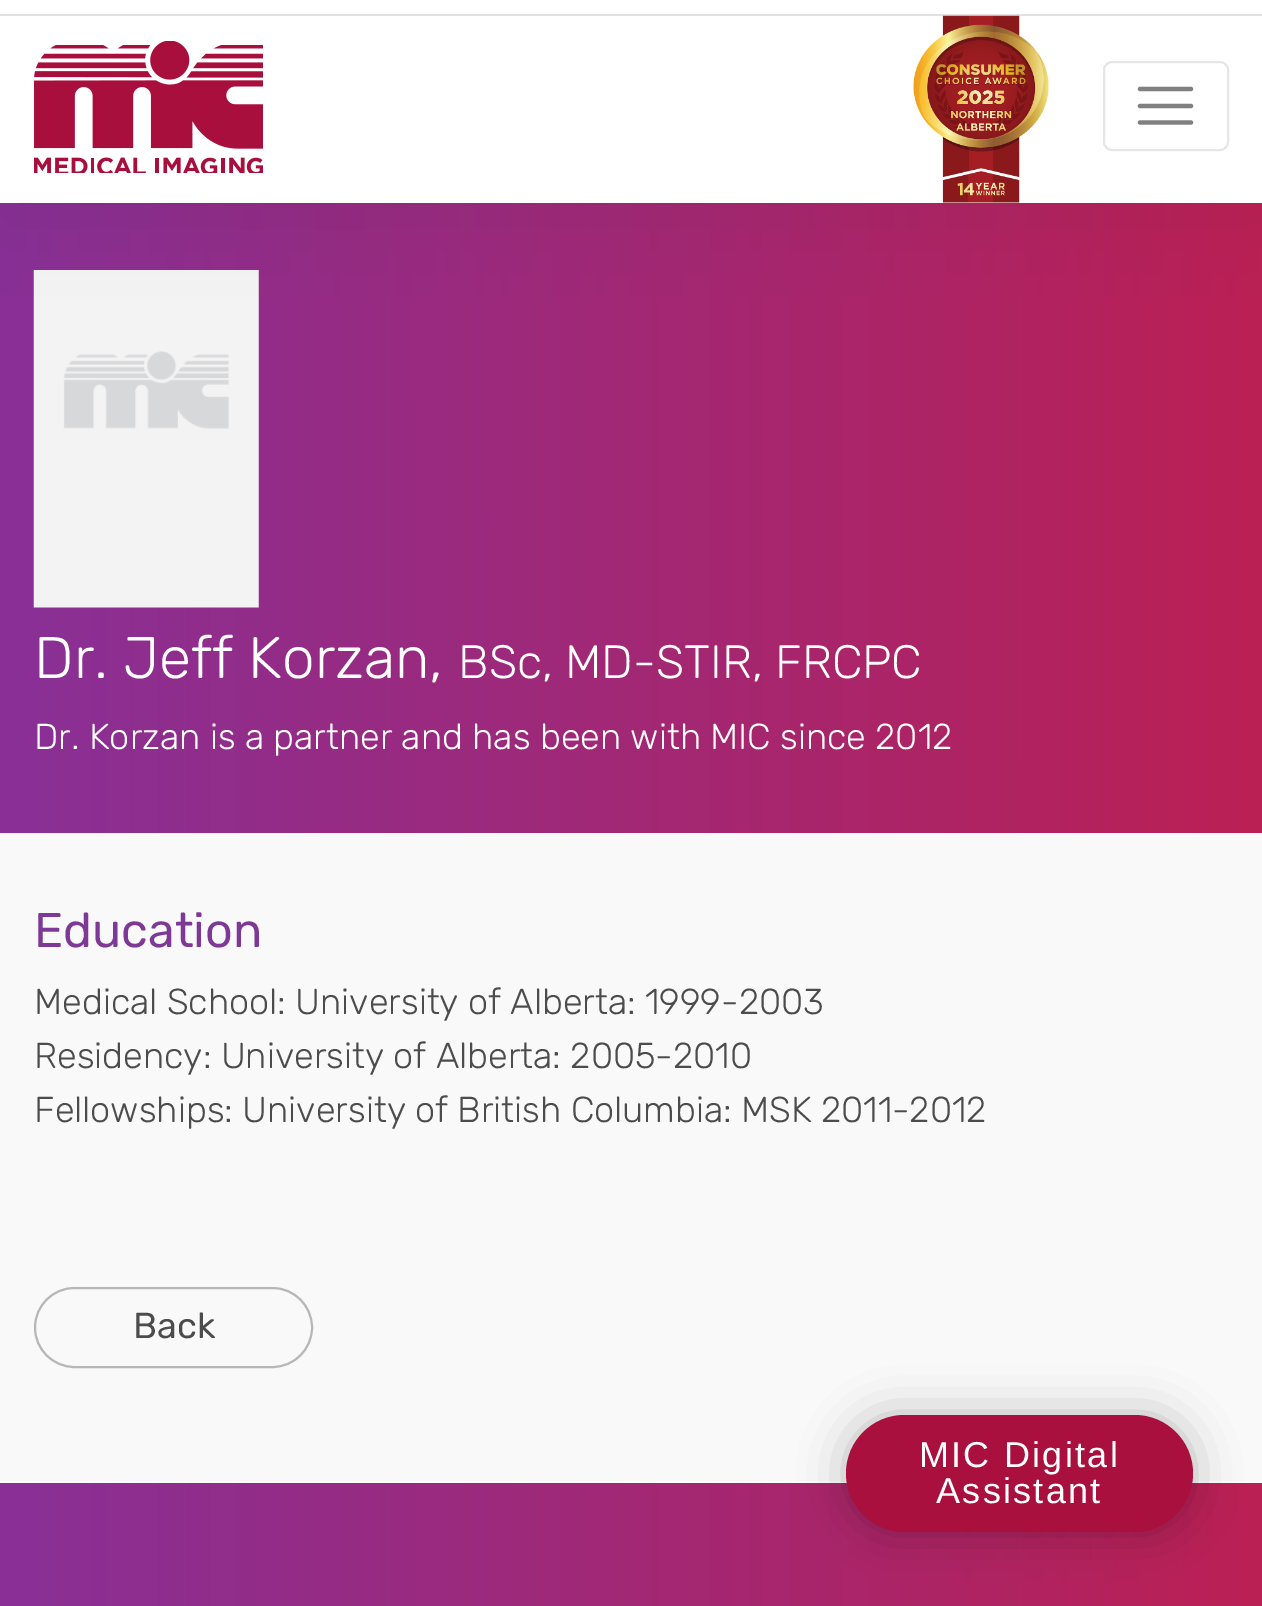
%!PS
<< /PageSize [1262 1606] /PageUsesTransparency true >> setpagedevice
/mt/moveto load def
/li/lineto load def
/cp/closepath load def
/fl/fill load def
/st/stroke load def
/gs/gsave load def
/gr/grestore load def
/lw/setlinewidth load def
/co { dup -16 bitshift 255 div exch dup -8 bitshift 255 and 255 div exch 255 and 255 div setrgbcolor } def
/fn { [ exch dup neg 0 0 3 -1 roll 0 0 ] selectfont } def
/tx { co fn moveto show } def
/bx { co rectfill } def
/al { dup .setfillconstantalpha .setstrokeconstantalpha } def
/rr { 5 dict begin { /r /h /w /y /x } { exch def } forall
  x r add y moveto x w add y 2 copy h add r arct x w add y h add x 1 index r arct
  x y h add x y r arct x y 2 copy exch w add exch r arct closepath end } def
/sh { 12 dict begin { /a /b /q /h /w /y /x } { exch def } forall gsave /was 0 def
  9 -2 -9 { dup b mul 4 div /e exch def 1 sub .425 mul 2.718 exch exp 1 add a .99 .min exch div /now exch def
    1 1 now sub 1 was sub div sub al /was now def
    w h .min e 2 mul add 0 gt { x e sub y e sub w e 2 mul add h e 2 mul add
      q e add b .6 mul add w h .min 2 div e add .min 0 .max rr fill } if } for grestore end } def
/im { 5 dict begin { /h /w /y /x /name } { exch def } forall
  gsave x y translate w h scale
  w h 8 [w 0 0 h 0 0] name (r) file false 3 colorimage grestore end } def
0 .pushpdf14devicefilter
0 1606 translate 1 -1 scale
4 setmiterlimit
0 0 1262 1606 16#FFFFFF bx
gs 0 203 mt 1262 203 li 1262 833 li 0 833 li cp clip newpath
<< /ShadingType 2 /ColorSpace /DeviceRGB /Coords [0 518 1262 517] /Extend [true true] /Function << /FunctionType 2 /Domain [0 1] /C0 [.537 .188 .592] /C1 [.733 .125 .329] /N 1 >> >> shfill gr
(media/3.raw) 33 270 226 338 im
16#000000 co
0 -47 1262 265 0 45 .05 sh
0 0 1262 203 16#FFFFFF bx
0 14 1262 2 16#E1E1E1 bx
(media/1.raw) 34 41 229 132 im
(media/2.raw) 913 15 136 188 im
16#E6E6E6 co
2 lw
1104 62 124 88 8 rr st
16#808080 co
4.2 lw
1 setlinecap
1140 89 mt 1191 89 li 1140 106 mt 1191 106 li 1140 122.5 mt 1191 122.5 li st
0 833 1262 648 16#F9F9F9 bx
16#B7B7B7 co
2 lw
0 setlinecap
35 1288 277 79 39.5 rr st
gs 0 1483 mt 1262 1483 li 1262 1606 li 0 1606 li cp clip newpath
<< /ShadingType 2 /ColorSpace /DeviceRGB /Coords [0 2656 1262 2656] /Extend [true true] /Function << /FunctionType 2 /Domain [0 1] /C0 [.537 .188 .592] /C1 [.733 .125 .329] /N 1 >> >> shfill gr
16#000000 co
846 1415 347 117 58.5 22.5 .25 sh
16#A9103D co
846 1415 347 117 58.5 rr fl
(Dr. Jeff Korzan,) 34 678 /Rubik-Light 58.5 16#FFFFFF tx
(BSc, MD-STIR, FRCPC) 458 678 /Rubik-Light 46.75 16#FFFFFF tx
(Dr. Korzan is a partner and has been with MIC since 2012) 34 749 /Rubik-Light 36 16#FFFFFF tx
(Education) 34 947 /Rubik-Regular 48.5 16#7D3995 tx
(Medical School: University of Alberta: 1999-2003) 34 1014 /Rubik-Light 36 16#4C4C4C tx
(Residency: University of Alberta: 2005-2010) 34 1068 /Rubik-Light 36 16#4C4C4C tx
(Fellowships: University of British Columbia: MSK 2011-2012) 34 1122 /Rubik-Light 36 16#4C4C4C tx
(Back) 133 1338 /Rubik-Regular 36 16#4C4C4C tx
/LiberationSans-Regular 36 fn
16#FFFFFF co
919 1467 mt 2.25 0 (MIC Digital) ashow
936 1503 mt 2.25 0 (Assistant) ashow
.poppdf14devicefilter showpage
